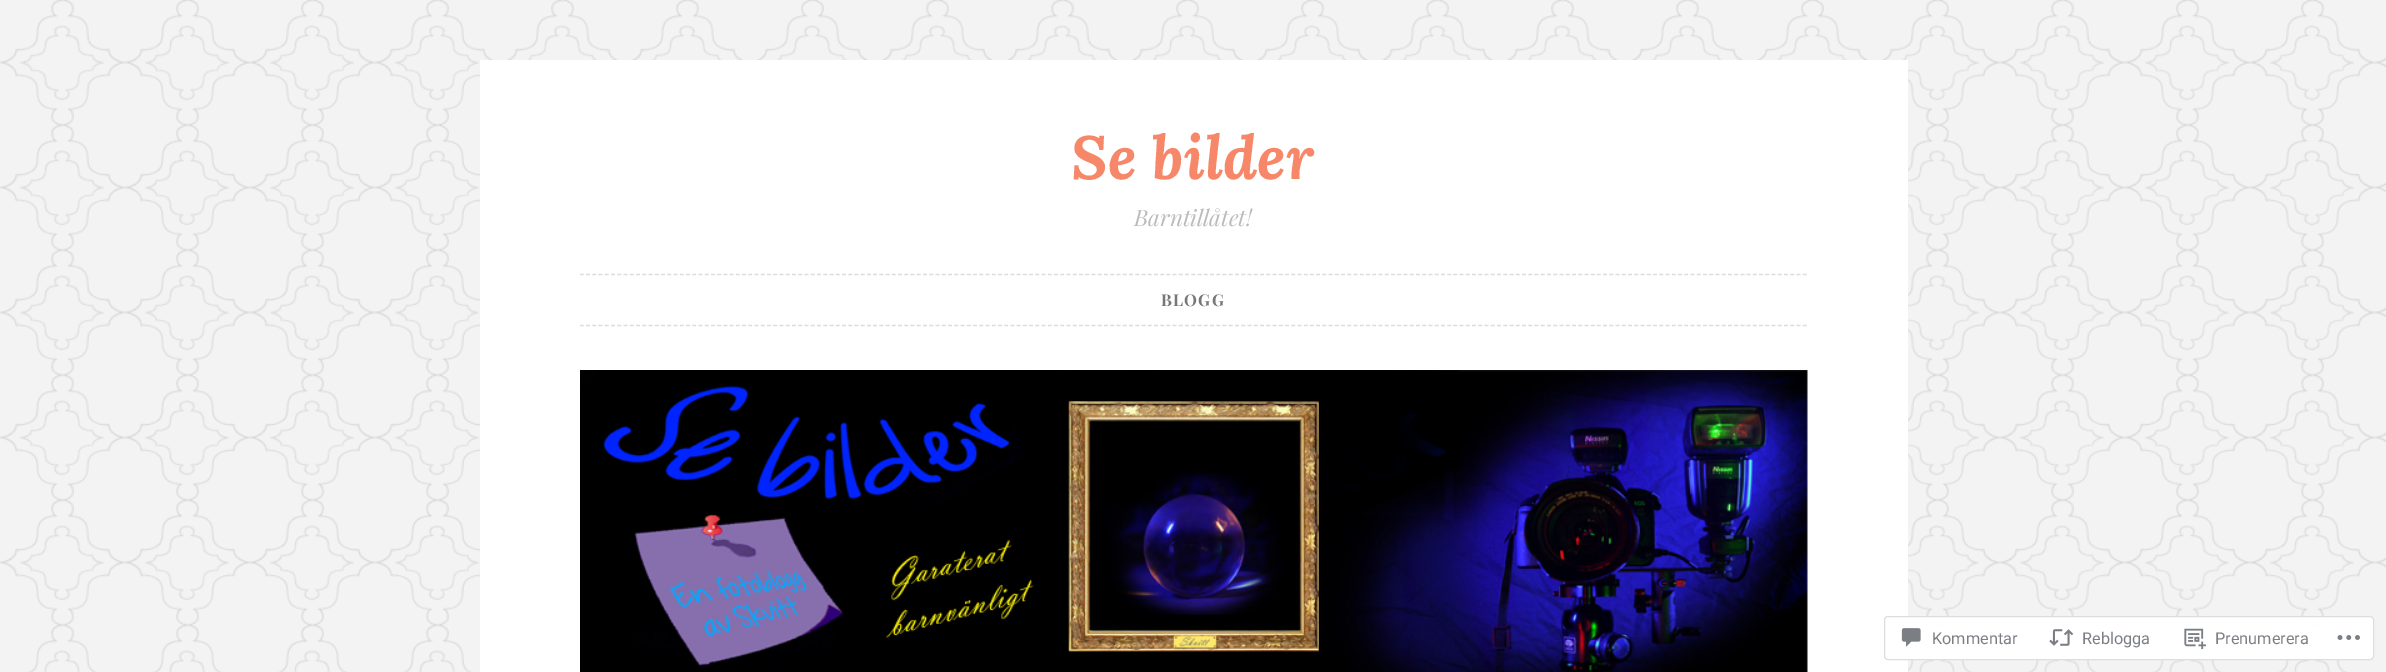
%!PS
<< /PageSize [2386 672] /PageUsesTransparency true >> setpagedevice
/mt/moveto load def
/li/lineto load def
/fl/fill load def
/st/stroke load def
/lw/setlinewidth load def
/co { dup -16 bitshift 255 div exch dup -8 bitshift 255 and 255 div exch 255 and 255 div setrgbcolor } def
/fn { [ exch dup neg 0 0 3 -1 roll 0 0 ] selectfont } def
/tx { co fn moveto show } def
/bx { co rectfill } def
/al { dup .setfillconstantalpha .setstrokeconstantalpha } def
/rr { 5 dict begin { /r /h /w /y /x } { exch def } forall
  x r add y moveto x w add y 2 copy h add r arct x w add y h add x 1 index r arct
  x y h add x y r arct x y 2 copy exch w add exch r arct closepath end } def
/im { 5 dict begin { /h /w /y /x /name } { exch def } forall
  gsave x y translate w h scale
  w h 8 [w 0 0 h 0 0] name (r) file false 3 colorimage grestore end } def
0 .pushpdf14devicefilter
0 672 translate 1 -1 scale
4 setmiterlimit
0 0 2386 672 16#F3F3F3 bx
(media/1.raw) 0 0 2386 672 im
480 60 1428 612 16#FFFFFF bx
16#DDDDDD co
1.2 lw
[3.75 2.49] 0 setdash
580 274.5 mt 1807.5 274.5 li st
580 325.5 mt 1807.5 325.5 li st
(media/2.raw) 580 370 1228 302 im
0.98 al
16#FFFFFF co
1884 616 490 44 4 rr fl
16#DCDCDE co
1 lw
[] 0 setdash
1884.5 616.5 489 43 3.5 rr st
1 al
(media/3.raw) 1901 628 20 19 im
(media/4.raw) 2049 629 25 17 im
(media/5.raw) 2184 628 22 22 im
(media/6.raw) 2337 635 23 5 im
(Se bilder) 1071 179 /Lora-BoldItalic 61 16#F78769 tx
(Barntillåtet!) 1134 226 /PlayfairDisplay-Italic 22.5 16#BBBBBB tx
/PlayfairDisplay-Bold 16.25 fn
16#777777 co
1161 306 mt 1.25 0 (BLOGG) ashow
(Kommentar) 1932 644 /Roboto-Regular 16.25 16#7B7F84 tx
(Reblogga) 2082 644 /Roboto-Regular 16.25 16#7B7F84 tx
(Prenumerera) 2215 644 /Roboto-Regular 16.25 16#7B7F84 tx
.poppdf14devicefilter showpage
